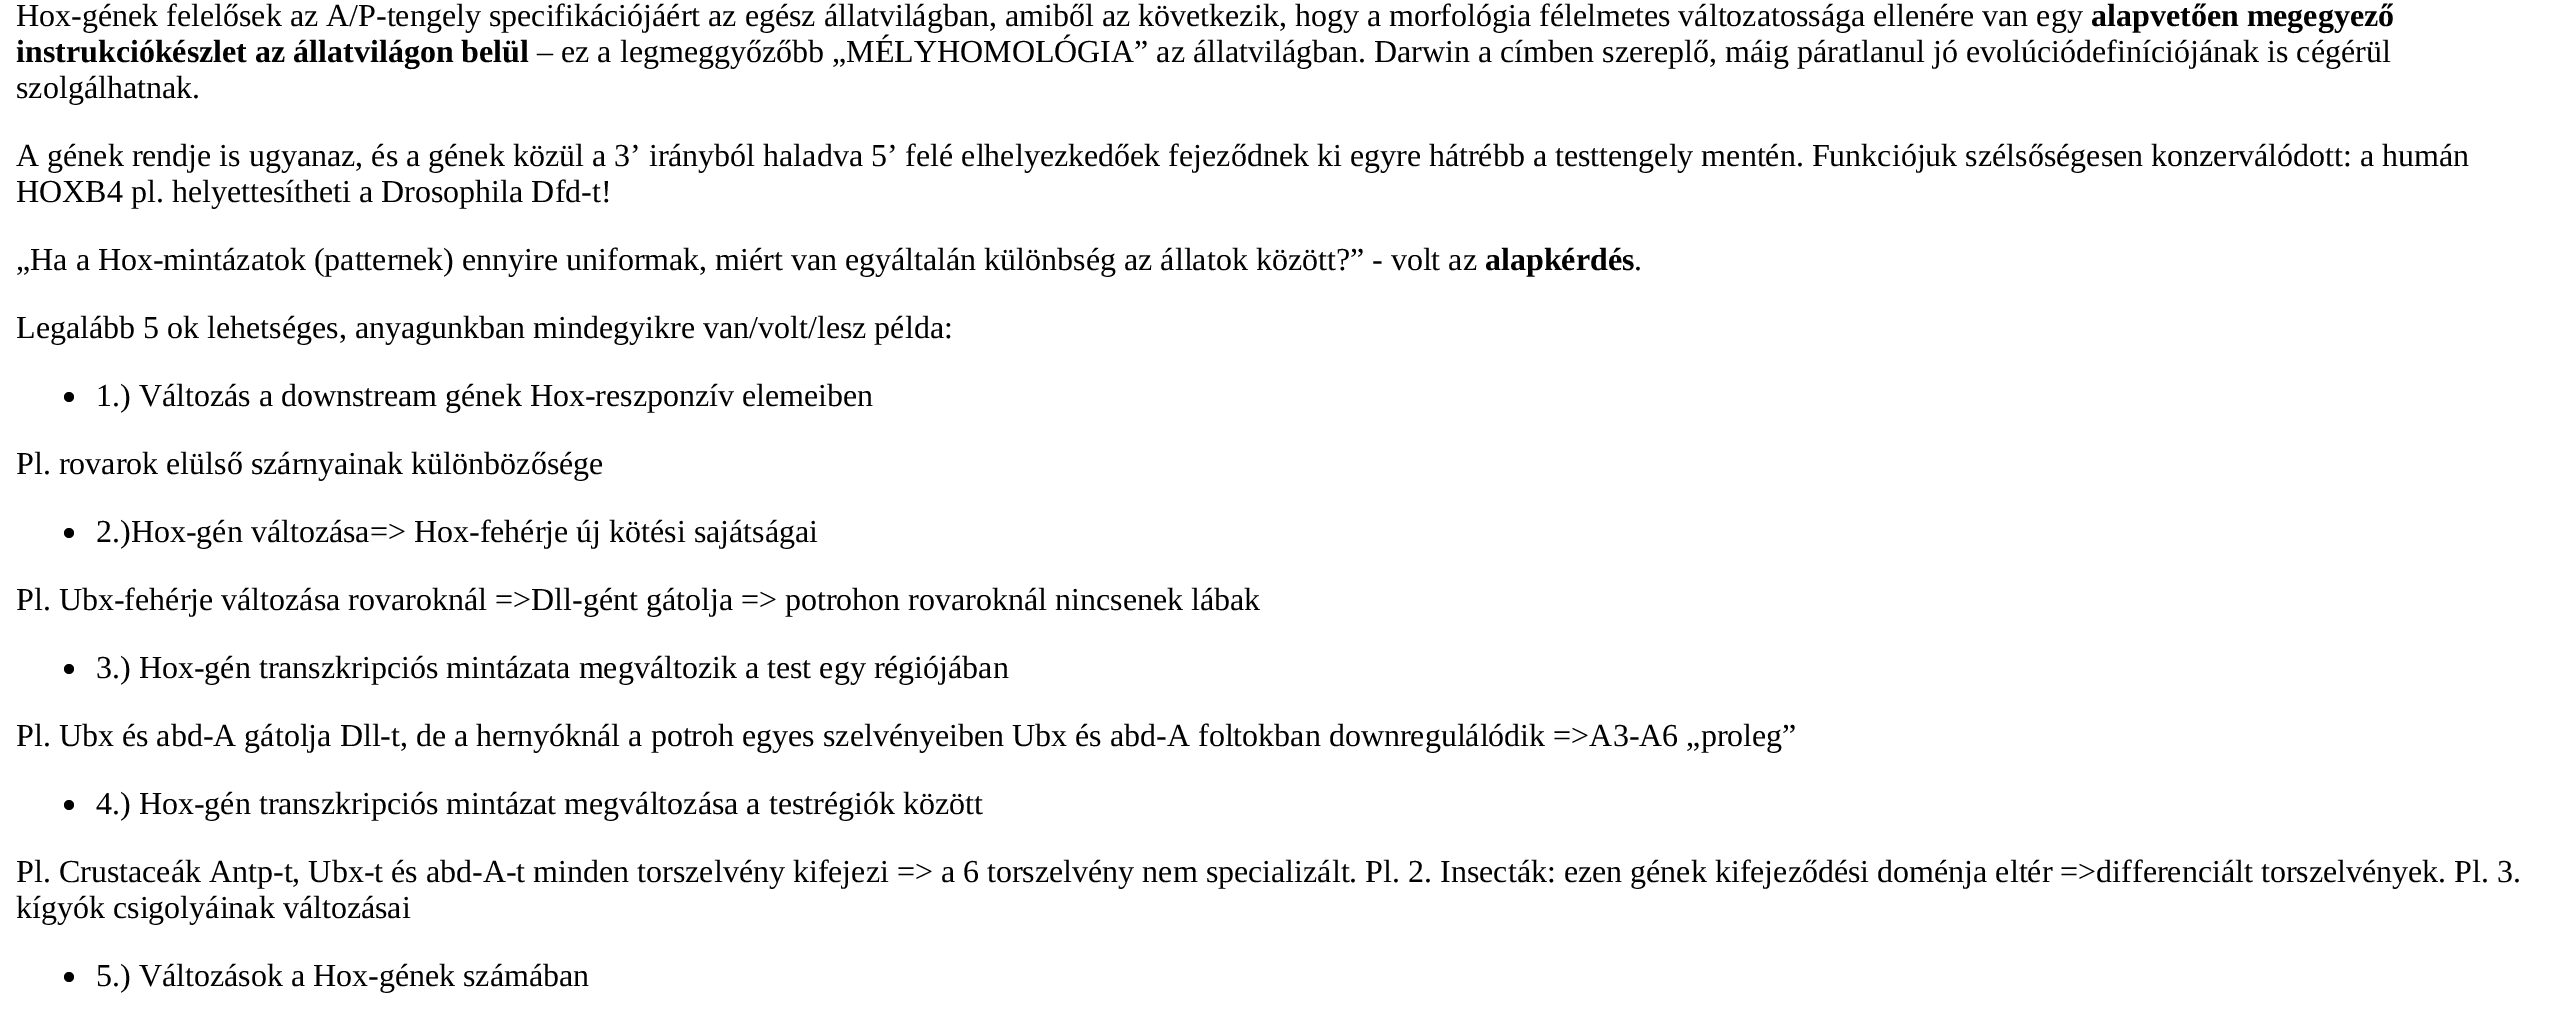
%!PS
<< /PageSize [2571 1028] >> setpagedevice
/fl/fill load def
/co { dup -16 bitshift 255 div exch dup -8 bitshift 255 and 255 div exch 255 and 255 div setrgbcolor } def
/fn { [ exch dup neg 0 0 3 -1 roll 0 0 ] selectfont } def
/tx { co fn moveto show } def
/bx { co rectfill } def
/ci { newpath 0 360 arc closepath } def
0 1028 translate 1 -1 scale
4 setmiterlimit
0 0 2571 1028 16#FFFFFF bx
16#000000 co
69 397 5 ci fl
69 533 5 ci fl
69 669 5 ci fl
69 805 5 ci fl
69 977 5 ci fl
(Hox-gének felelősek az A/P-tengely specifikációjáért az egész állatvilágban, amiből az következik, hogy a morfológia félelmetes változatossága ellenére van egy) 16 26 /LiberationSerif-Regular 32 16#000000 tx
(alapvetően megegyező) 2091 26 /LiberationSerif-Bold 32 16#000000 tx
(instrukciókészlet az állatvilágon belül) 16 62 /LiberationSerif-Bold 32 16#000000 tx
(– ez a legmeggyőzőbb „MÉLYHOMOLÓGIA” az állatvilágban. Darwin a címben szereplő, máig páratlanul jó evolúciódefiníciójának is cégérül) 537 62 /LiberationSerif-Regular 32 16#000000 tx
(szolgálhatnak.) 16 98 /LiberationSerif-Regular 32 16#000000 tx
(A gének rendje is ugyanaz, és a gének közül a 3’ irányból haladva 5’ felé elhelyezkedőek fejeződnek ki egyre hátrébb a testtengely mentén. Funkciójuk szélsőségesen konzerválódott: a humán) 16 166 /LiberationSerif-Regular 32 16#000000 tx
(HOXB4 pl. helyettesítheti a Drosophila Dfd-t!) 16 202 /LiberationSerif-Regular 32 16#000000 tx
(„Ha a Hox-mintázatok \(patternek\) ennyire uniformak, miért van egyáltalán különbség az állatok között?” - volt az) 16 270 /LiberationSerif-Regular 32 16#000000 tx
(alapkérdés) 1485 270 /LiberationSerif-Bold 32 16#000000 tx
(.) 1634 270 /LiberationSerif-Regular 32 16#000000 tx
(Legalább 5 ok lehetséges, anyagunkban mindegyikre van/volt/lesz példa:) 16 338 /LiberationSerif-Regular 32 16#000000 tx
(1.\) Változás a downstream gének Hox-reszponzív elemeiben) 96 406 /LiberationSerif-Regular 32 16#000000 tx
(Pl. rovarok elülső szárnyainak különbözősége) 16 474 /LiberationSerif-Regular 32 16#000000 tx
(2.\)Hox-gén változása=> Hox-fehérje új kötési sajátságai) 96 542 /LiberationSerif-Regular 32 16#000000 tx
(Pl. Ubx-fehérje változása rovaroknál =>Dll-gént gátolja => potrohon rovaroknál nincsenek lábak) 16 610 /LiberationSerif-Regular 32 16#000000 tx
(3.\) Hox-gén transzkripciós mintázata megváltozik a test egy régiójában) 96 678 /LiberationSerif-Regular 32 16#000000 tx
(Pl. Ubx és abd-A gátolja Dll-t, de a hernyóknál a potroh egyes szelvényeiben Ubx és abd-A foltokban downregulálódik =>A3-A6 „proleg”) 16 746 /LiberationSerif-Regular 32 16#000000 tx
(4.\) Hox-gén transzkripciós mintázat megváltozása a testrégiók között) 96 814 /LiberationSerif-Regular 32 16#000000 tx
(Pl. Crustaceák Antp-t, Ubx-t és abd-A-t minden torszelvény kifejezi => a 6 torszelvény nem specializált. Pl. 2. Insecták: ezen gének kifejeződési doménja eltér =>differenciált torszelvények. Pl. 3.) 16 882 /LiberationSerif-Regular 32 16#000000 tx
(kígyók csigolyáinak változásai) 16 918 /LiberationSerif-Regular 32 16#000000 tx
(5.\) Változások a Hox-gének számában) 96 986 /LiberationSerif-Regular 32 16#000000 tx
showpage
